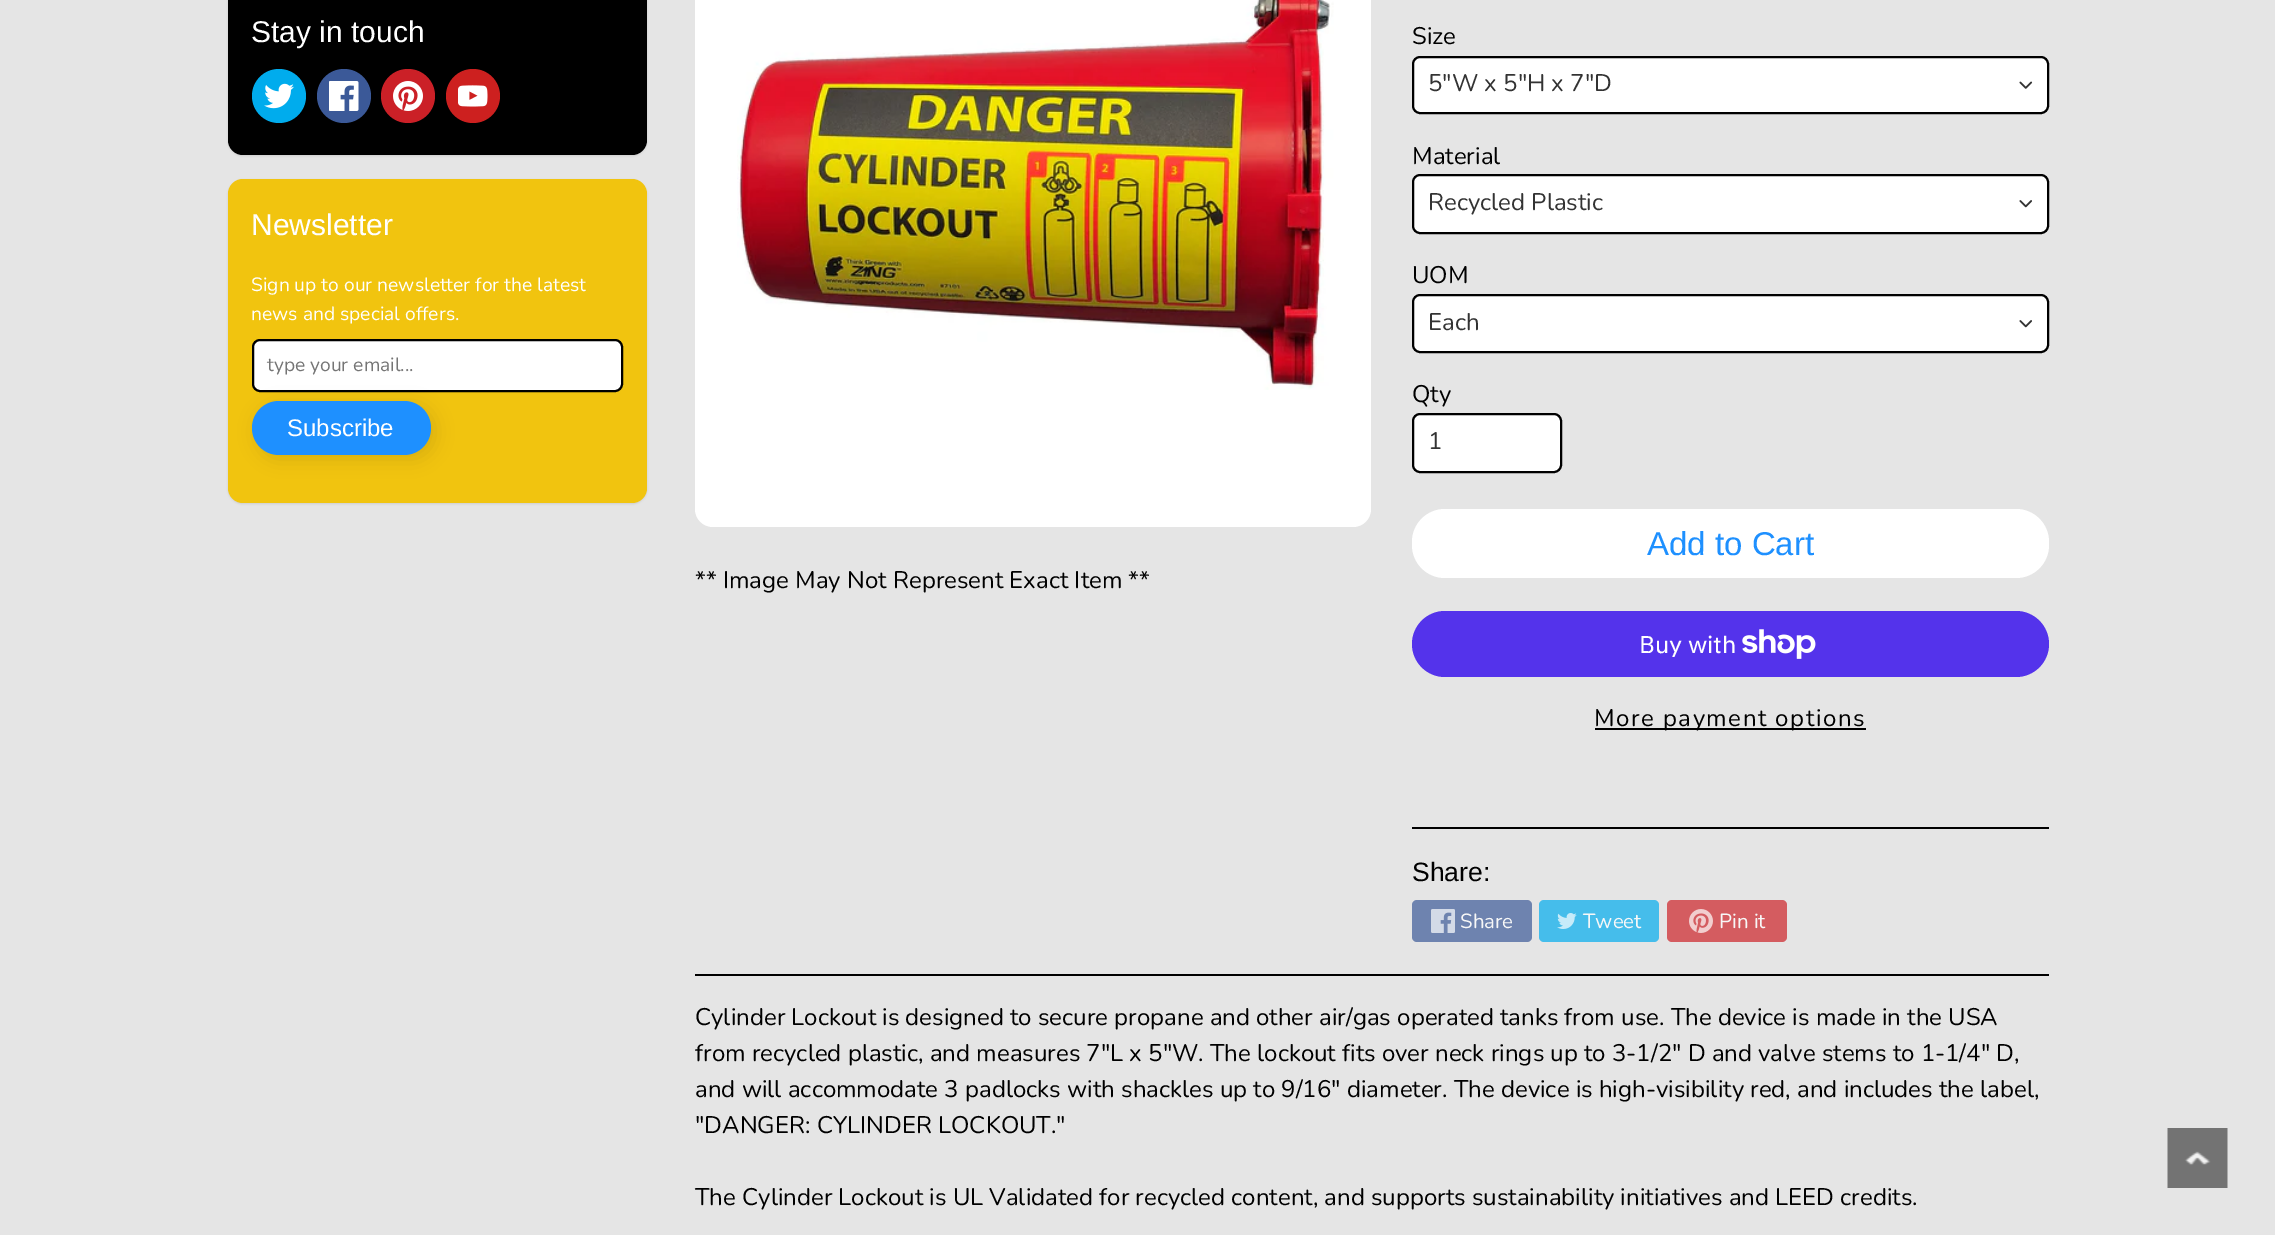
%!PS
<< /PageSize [2275 1235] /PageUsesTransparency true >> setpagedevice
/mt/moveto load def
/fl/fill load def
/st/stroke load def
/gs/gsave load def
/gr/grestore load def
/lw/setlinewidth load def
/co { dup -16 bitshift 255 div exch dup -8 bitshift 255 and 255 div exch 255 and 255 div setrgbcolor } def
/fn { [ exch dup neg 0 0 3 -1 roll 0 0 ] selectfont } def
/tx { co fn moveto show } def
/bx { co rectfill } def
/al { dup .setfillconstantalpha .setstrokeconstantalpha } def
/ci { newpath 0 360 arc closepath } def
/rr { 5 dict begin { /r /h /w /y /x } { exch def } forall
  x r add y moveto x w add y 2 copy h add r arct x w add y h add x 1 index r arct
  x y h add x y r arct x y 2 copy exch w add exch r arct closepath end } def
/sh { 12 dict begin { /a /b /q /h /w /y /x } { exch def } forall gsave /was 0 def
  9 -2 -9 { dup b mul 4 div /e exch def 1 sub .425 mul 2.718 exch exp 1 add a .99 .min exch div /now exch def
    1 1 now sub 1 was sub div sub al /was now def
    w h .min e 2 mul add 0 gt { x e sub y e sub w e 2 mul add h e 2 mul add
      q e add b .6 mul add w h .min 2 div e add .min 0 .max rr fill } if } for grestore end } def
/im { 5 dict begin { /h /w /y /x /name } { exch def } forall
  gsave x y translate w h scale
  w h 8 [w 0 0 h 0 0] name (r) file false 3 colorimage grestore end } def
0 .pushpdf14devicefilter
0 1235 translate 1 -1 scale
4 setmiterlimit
0 0 2275 1235 16#E5E5E5 bx
16#000000 co
228 -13 419 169 15 1 .1 sh
228 -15 419 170 15 rr fl
16#00ACED co
279 96 27 ci fl
(media/1.raw) 264 83 30 26 im
16#3B5998 co
344 96 27 ci fl
(media/2.raw) 329 81 30 30 im
16#CB2027 co
408 96 27 ci fl
(media/3.raw) 393 81 30 30 im
16#CD201F co
473 96 27 ci fl
(media/4.raw) 458 85 30 22 im
16#000000 co
228 180 419 324 15 1 .1 sh
16#F1C40F co
228 179 419 324 15 rr fl
16#FFFFFF co
253 340 369 51 7 rr gs fl gr
16#000000 co
2 lw
st
257 405 178 54 27 9 .1 sh
16#1E90FF co
252 401 179 54 27 rr fl
16#FFFFFF co
695 -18 676 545 18 rr fl
(media/5.raw) 737 0 597 390 im
1412 56 637 58 8 rr fl
(media/6.raw) 2019 81 14 8 im
16#000000 co
1413 57 635 56 7 rr st
16#FFFFFF co
1412 174 637 60 8 rr fl
(media/7.raw) 2019 200 13 8 im
16#000000 co
1413 175 635 58 7 rr st
16#FFFFFF co
1412 294 637 59 8 rr fl
(media/7.raw) 2019 320 13 8 im
16#000000 co
1413 295 635 57 7 rr st
16#FFFFFF co
1413 414 148 58 7 rr gs fl gr
16#000000 co
st
16#FFFFFF co
1412 509 637 69 33 rr fl
16#5433EB co
1412 611 637 66 33 rr fl
(media/8.raw) 1742 629 74 30 im
1595 728 271 2 16#000000 bx
1412 827 637 2 16#000000 bx
16#6E83AF co
1412 900 120 42 5 rr fl
(media/9.raw) 1431 909 24 24 im
16#45BDEB co
1539 900 120 42 5 rr fl
(media/10.raw) 1557 913 20 16 im
16#D45C60 co
1667 900 120 42 5 rr fl
(media/11.raw) 1689 909 24 24 im
695 974 1354 2 16#000000 bx
(media/12.raw) 2167 1128 61 60 im
(Stay in touch) 251 42 /LiberationSans-Regular 30 16#FFFFFF tx
(Newsletter) 251 235 /LiberationSans-Regular 30 16#FFFFFF tx
(Sign up to our newsletter for the latest) 251 291 /Nunito-Regular 19.25 16#FFFFFF tx
(news and special offers.) 251 320 /Nunito-Regular 19.25 16#FFFFFF tx
(type your email...) 267 371 /Nunito-Regular 19.25 16#757575 tx
(Subscribe) 287 436 /LiberationSans-Regular 24 16#FFFFFF tx
(** Image May Not Represent Exact Item **) 695 588 /Nunito-Regular 24 16#000000 tx
(Size) 1412 44 /Nunito-Regular 24 16#000000 tx
(5"W x 5"H x 7"D) 1428 91 /Nunito-Regular 24 16#333333 tx
(Material) 1412 164 /Nunito-Regular 24 16#000000 tx
(Recycled Plastic) 1428 210 /Nunito-Regular 24 16#333333 tx
(UOM) 1412 283 /Nunito-Regular 24 16#000000 tx
(Each) 1428 330 /Nunito-Regular 24 16#333333 tx
(Qty) 1412 402 /Nunito-Regular 24 16#000000 tx
(1) 1428 449 /Nunito-Regular 24 16#333333 tx
(Add to Cart) 1647 555 /LiberationSans-Regular 33 16#1E90FF tx
(Buy with) 1639 653 /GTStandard-Regular 24 16#FFFFFF tx
/Nunito-Regular 24 fn
16#000000 co
1594 726 mt 1.5 0 (More payment options) ashow
(Share:) 1412 881 /LiberationSans-Regular 26.5 16#000000 tx
(Share) 1460 928 /Nunito-Regular 20.5 16#F7F7F7 tx
(Tweet) 1583 928 /Nunito-Regular 20.5 16#F7F7F7 tx
(Pin it) 1719 928 /Nunito-Regular 20.5 16#F7F7F7 tx
(Cylinder Lockout is designed to secure propane and other air/gas operated tanks from use. The device is made in the USA) 695 1025 /Nunito-Regular 24 16#000000 tx
(from recycled plastic, and measures 7"L x 5"W. The lockout fits over neck rings up to 3-1/2" D and valve stems to 1-1/4" D,) 695 1061 /Nunito-Regular 24 16#000000 tx
(and will accommodate 3 padlocks with shackles up to 9/16" diameter. The device is high-visibility red, and includes the label,) 695 1097 /Nunito-Regular 24 16#000000 tx
("DANGER: CYLINDER LOCKOUT.") 695 1133 /Nunito-Regular 24 16#000000 tx
(The Cylinder Lockout is UL Validated for recycled content, and supports sustainability initiatives and LEED credits.) 695 1205 /Nunito-Regular 24 16#000000 tx
.poppdf14devicefilter showpage
